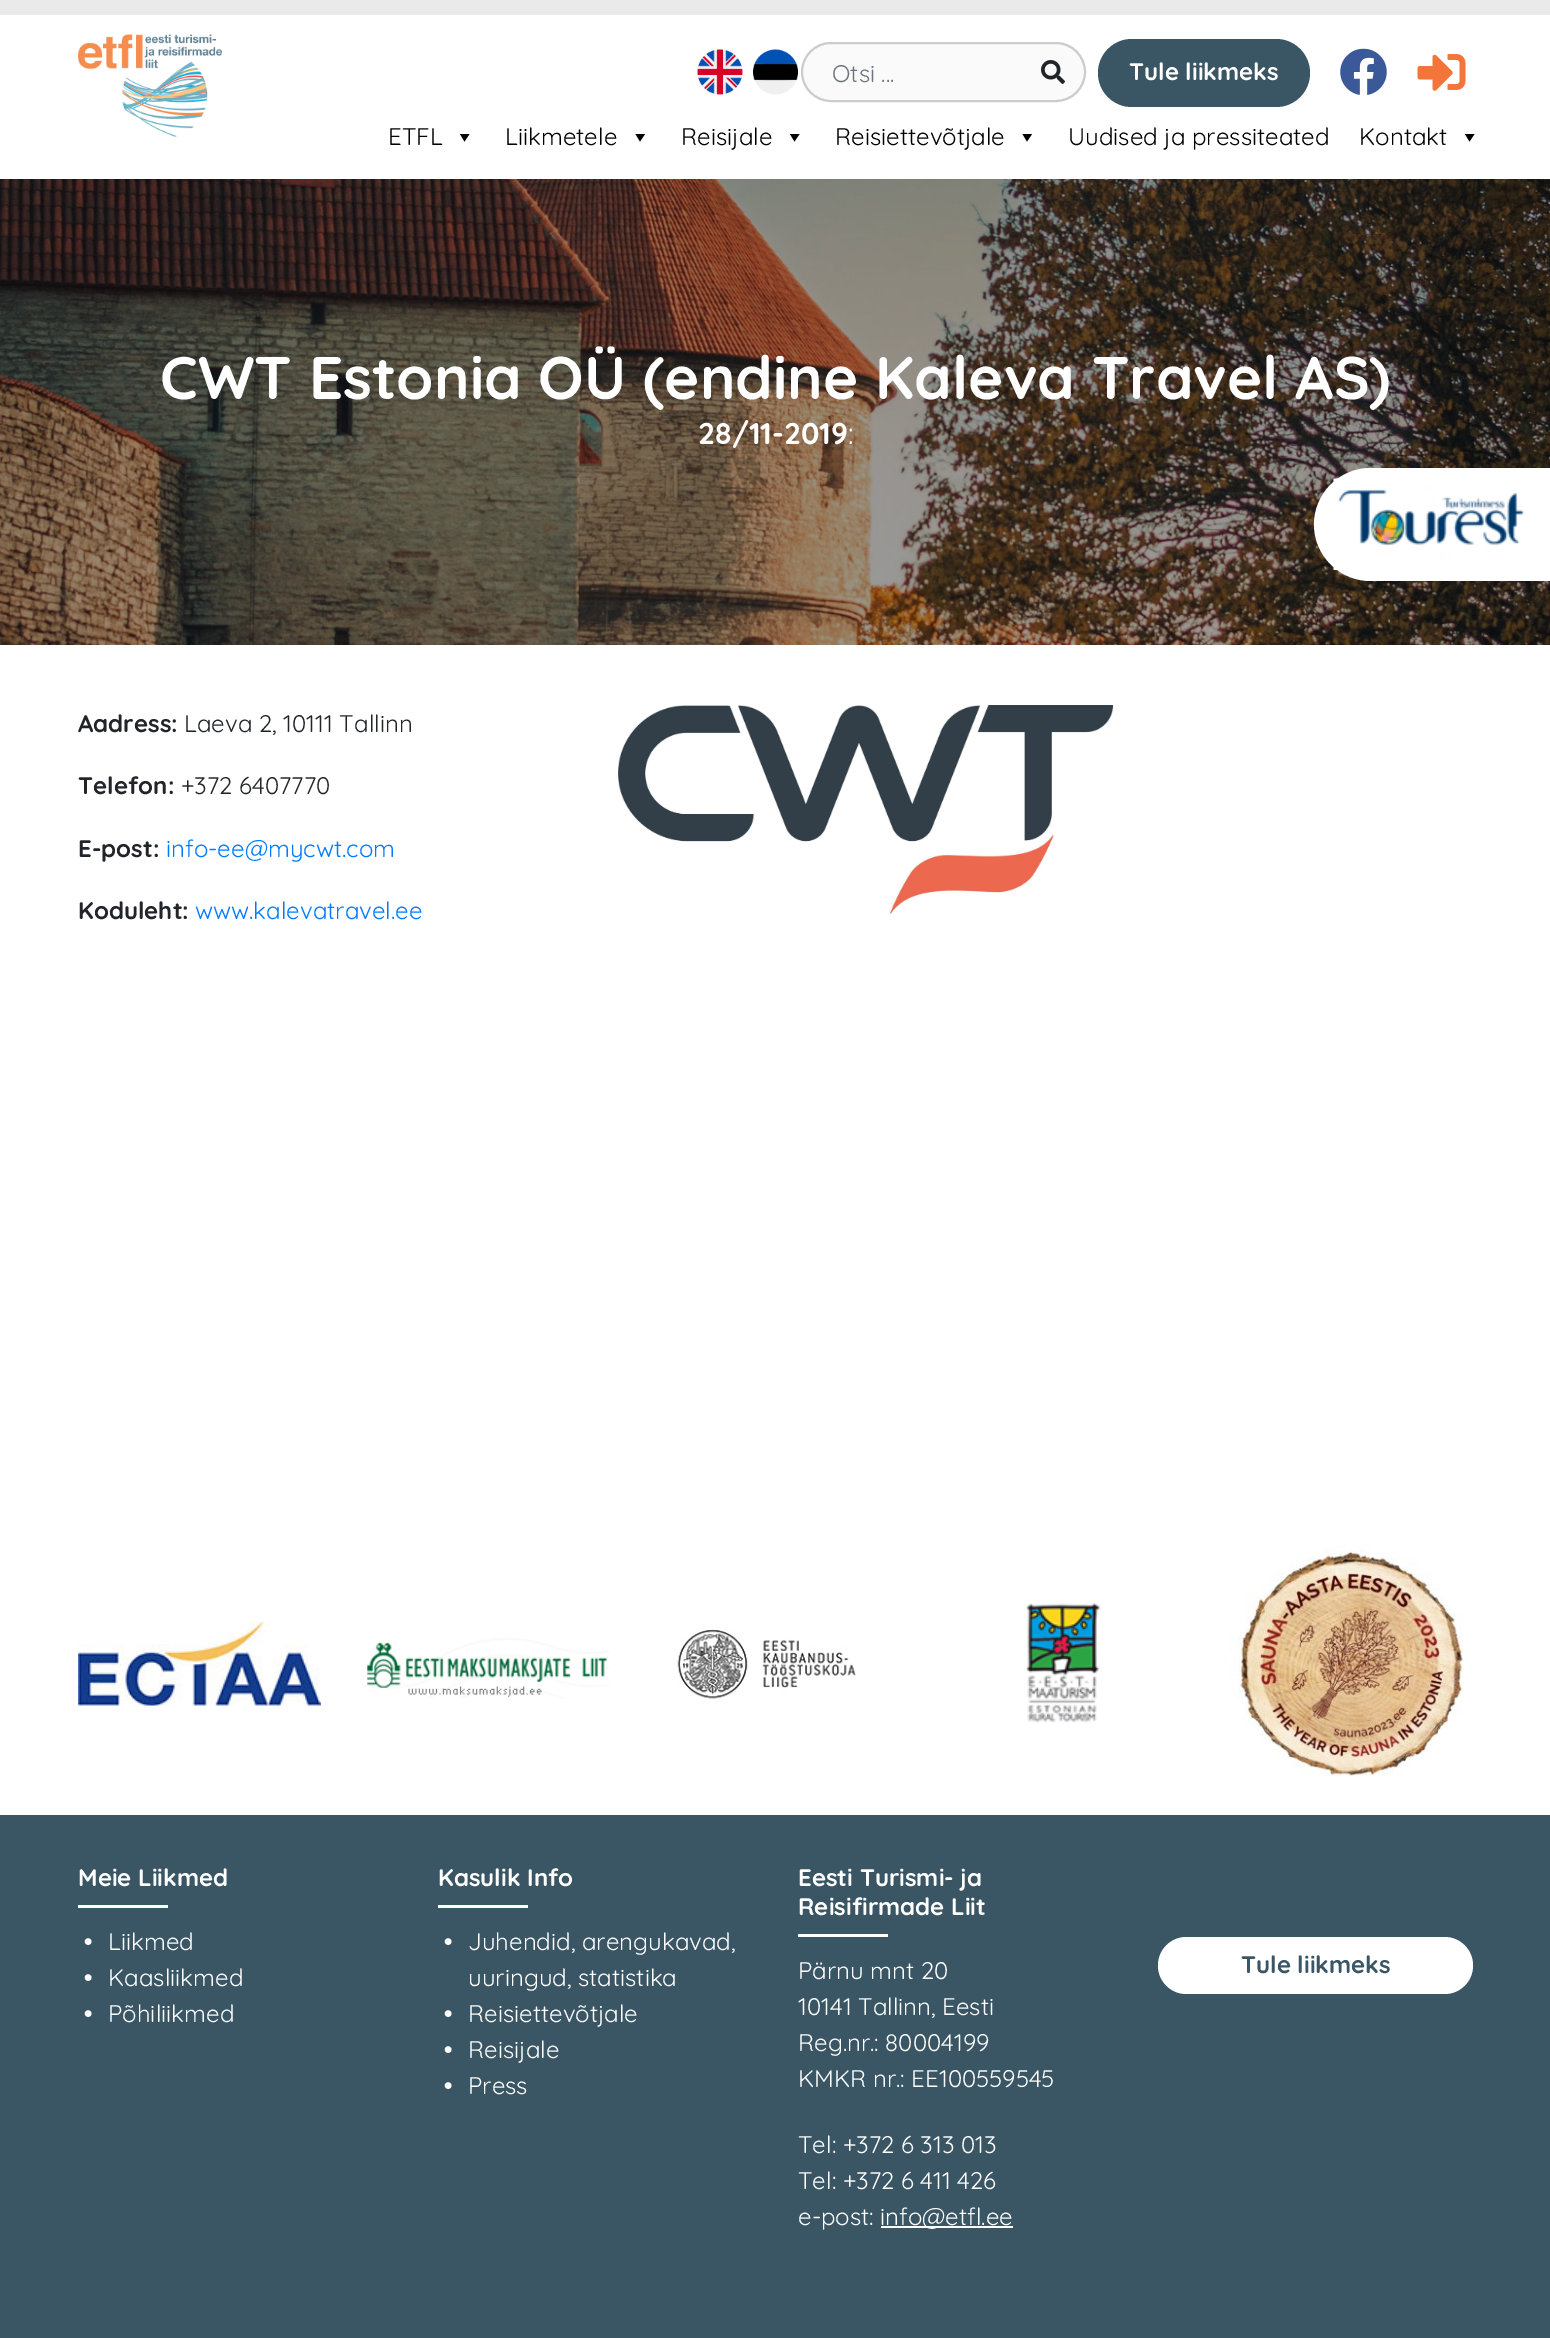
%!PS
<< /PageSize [1550 2338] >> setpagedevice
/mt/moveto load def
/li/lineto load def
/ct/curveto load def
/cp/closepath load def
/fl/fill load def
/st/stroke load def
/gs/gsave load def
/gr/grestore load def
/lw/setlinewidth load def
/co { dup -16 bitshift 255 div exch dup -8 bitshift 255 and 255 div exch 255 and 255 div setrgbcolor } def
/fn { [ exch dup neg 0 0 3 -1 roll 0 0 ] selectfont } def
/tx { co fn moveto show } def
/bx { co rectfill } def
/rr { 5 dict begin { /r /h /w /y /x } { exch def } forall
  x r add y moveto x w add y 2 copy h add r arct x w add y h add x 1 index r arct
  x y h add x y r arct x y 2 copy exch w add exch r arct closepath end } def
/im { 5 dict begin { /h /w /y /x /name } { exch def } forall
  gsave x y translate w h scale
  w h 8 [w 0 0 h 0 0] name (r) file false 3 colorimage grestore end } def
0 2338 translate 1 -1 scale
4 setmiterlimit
0 0 1550 2338 16#FFFFFF bx
0 0 1550 15 16#EAEAEA bx
(media/1.raw) 78 34 144 103 im
(media/2.raw) 697 49 46 46 im
(media/3.raw) 753 49 45 46 im
16#FAFAFA co
802 43 283 58 29 rr gs fl gr
16#CCCCCC co
2 lw
st
(media/4.raw) 1041 60 24 24 im
16#3A5664 co
1098 39 212 68 34 rr fl
(media/5.raw) 1340 48 47 47 im
(media/6.raw) 1417 54 49 37 im
16#000000 co
469.5 134 mt 464.5 141.5 li 460 134 li cp fl
645 134 mt 640 141.5 li 635.5 134 li cp fl
799.5 134 mt 794.5 141.5 li 790 134 li cp fl
1032 134 mt 1027 141.5 li 1022.5 134 li cp fl
1474.5 134 mt 1469.5 141.5 li 1465 134 li cp fl
(media/7.raw) 0 179 1550 466 im
16#FFFFFF co
1370.5 468 mt 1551 468 li 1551 581 li 1370.5 581 li 1339.5 581 1314 555.5 1314 524.5 ct 1314 493.5 1339.5 468 1370.5 468 ct cp fl
(media/8.raw) 1333 478 192 92 im
(media/9.raw) 618 705 495 209 im
0 1815 1550 523 16#3A5664 bx
(media/10.raw) 78 1621 243 85 im
(media/11.raw) 367 1638 242 60 im
(media/12.raw) 677 1629 179 70 im
(media/13.raw) 1026 1603 75 120 im
(media/14.raw) 1230 1545 234 231 im
78 1905 90 3 16#FFFFFF bx
438 1905 90 3 16#FFFFFF bx
798 1934 90 3 16#FFFFFF bx
881 2226 132 2 16#FFFFFF bx
1158 1937 315 57 28.5 rr fl
(Otsi ...) 832 82 /Quicksand-Regular 24 16#6C757D tx
(Tule liikmeks) 1129 80 /Quicksand-Bold 24 16#FFFFFF tx
(ETFL) 388 145 /Quicksand-Regular 24 16#000000 tx
(Liikmetele) 505 145 /Quicksand-Regular 24 16#000000 tx
(Reisijale) 681 145 /Quicksand-Regular 24 16#000000 tx
(Reisiettevõtjale) 835 145 /Quicksand-Regular 24 16#000000 tx
(Uudised ja pressiteated) 1068 145 /Quicksand-Regular 24 16#000000 tx
(Kontakt) 1359 145 /Quicksand-Regular 24 16#000000 tx
(CWT Estonia OÜ \(endine Kaleva Travel AS\)) 160 399 /Quicksand-Bold 60 16#FFFFFF tx
(28/11-2019) 698 444 /Quicksand-Bold 30 16#FFFFFF tx
(:) 848 444 /Quicksand-Regular 30 16#FFFFFF tx
(Aadress:) 78 732 /Quicksand-Bold 24 16#212529 tx
(Laeva 2, 10111 Tallinn) 184 732 /Quicksand-Regular 24 16#212529 tx
(Telefon:) 78 794 /Quicksand-Bold 24 16#212529 tx
(+372 6407770) 181 794 /Quicksand-Regular 24 16#212529 tx
(E-post:) 78 857 /Quicksand-Bold 24 16#212529 tx
(info-ee@mycwt.com) 166 857 /Quicksand-Regular 24 16#007BFF tx
(Koduleht:) 78 919 /Quicksand-Bold 24 16#212529 tx
(www.kalevatravel.ee) 195 919 /Quicksand-Regular 24 16#007BFF tx
(Meie Liikmed) 78 1886 /Quicksand-Bold 24 16#FFFFFF tx
(•) 84 1950 /Quicksand-Bold 24 16#FFFFFF tx
(Liikmed) 108 1950 /Quicksand-Regular 24 16#FFFFFF tx
(•) 84 1986 /Quicksand-Bold 24 16#FFFFFF tx
(Kaasliikmed) 108 1986 /Quicksand-Regular 24 16#FFFFFF tx
(•) 84 2022 /Quicksand-Bold 24 16#FFFFFF tx
(Põhiliikmed) 108 2022 /Quicksand-Regular 24 16#FFFFFF tx
(Kasulik Info) 438 1886 /Quicksand-Bold 24 16#FFFFFF tx
(•) 444 1950 /Quicksand-Bold 24 16#FFFFFF tx
(Juhendid, arengukavad,) 468 1950 /Quicksand-Regular 24 16#FFFFFF tx
(uuringud, statistika) 468 1986 /Quicksand-Regular 24 16#FFFFFF tx
(•) 444 2022 /Quicksand-Bold 24 16#FFFFFF tx
(Reisiettevõtjale) 468 2022 /Quicksand-Regular 24 16#FFFFFF tx
(•) 444 2058 /Quicksand-Bold 24 16#FFFFFF tx
(Reisijale) 468 2058 /Quicksand-Regular 24 16#FFFFFF tx
(•) 444 2094 /Quicksand-Bold 24 16#FFFFFF tx
(Press) 468 2094 /Quicksand-Regular 24 16#FFFFFF tx
(Eesti Turismi- ja) 798 1886 /Quicksand-Bold 24 16#FFFFFF tx
(Reisifirmade Liit) 798 1915 /Quicksand-Bold 24 16#FFFFFF tx
(Pärnu mnt 20) 798 1979 /Quicksand-Regular 24 16#FFFFFF tx
(10141 Tallinn, Eesti) 798 2015 /Quicksand-Regular 24 16#FFFFFF tx
(Reg.nr.: 80004199) 798 2051 /Quicksand-Regular 24 16#FFFFFF tx
(KMKR nr.: EE100559545) 798 2087 /Quicksand-Regular 24 16#FFFFFF tx
(Tel: +372 6 313 013) 798 2153 /Quicksand-Regular 24 16#FFFFFF tx
(Tel: +372 6 411 426) 798 2189 /Quicksand-Regular 24 16#FFFFFF tx
(e-post:) 798 2225 /Quicksand-Regular 24 16#FFFFFF tx
(info@etfl.ee) 880 2225 /Quicksand-Regular 24 16#FFFFFF tx
(Tule liikmeks) 1241 1973 /Quicksand-Bold 24 16#3A5664 tx
showpage
